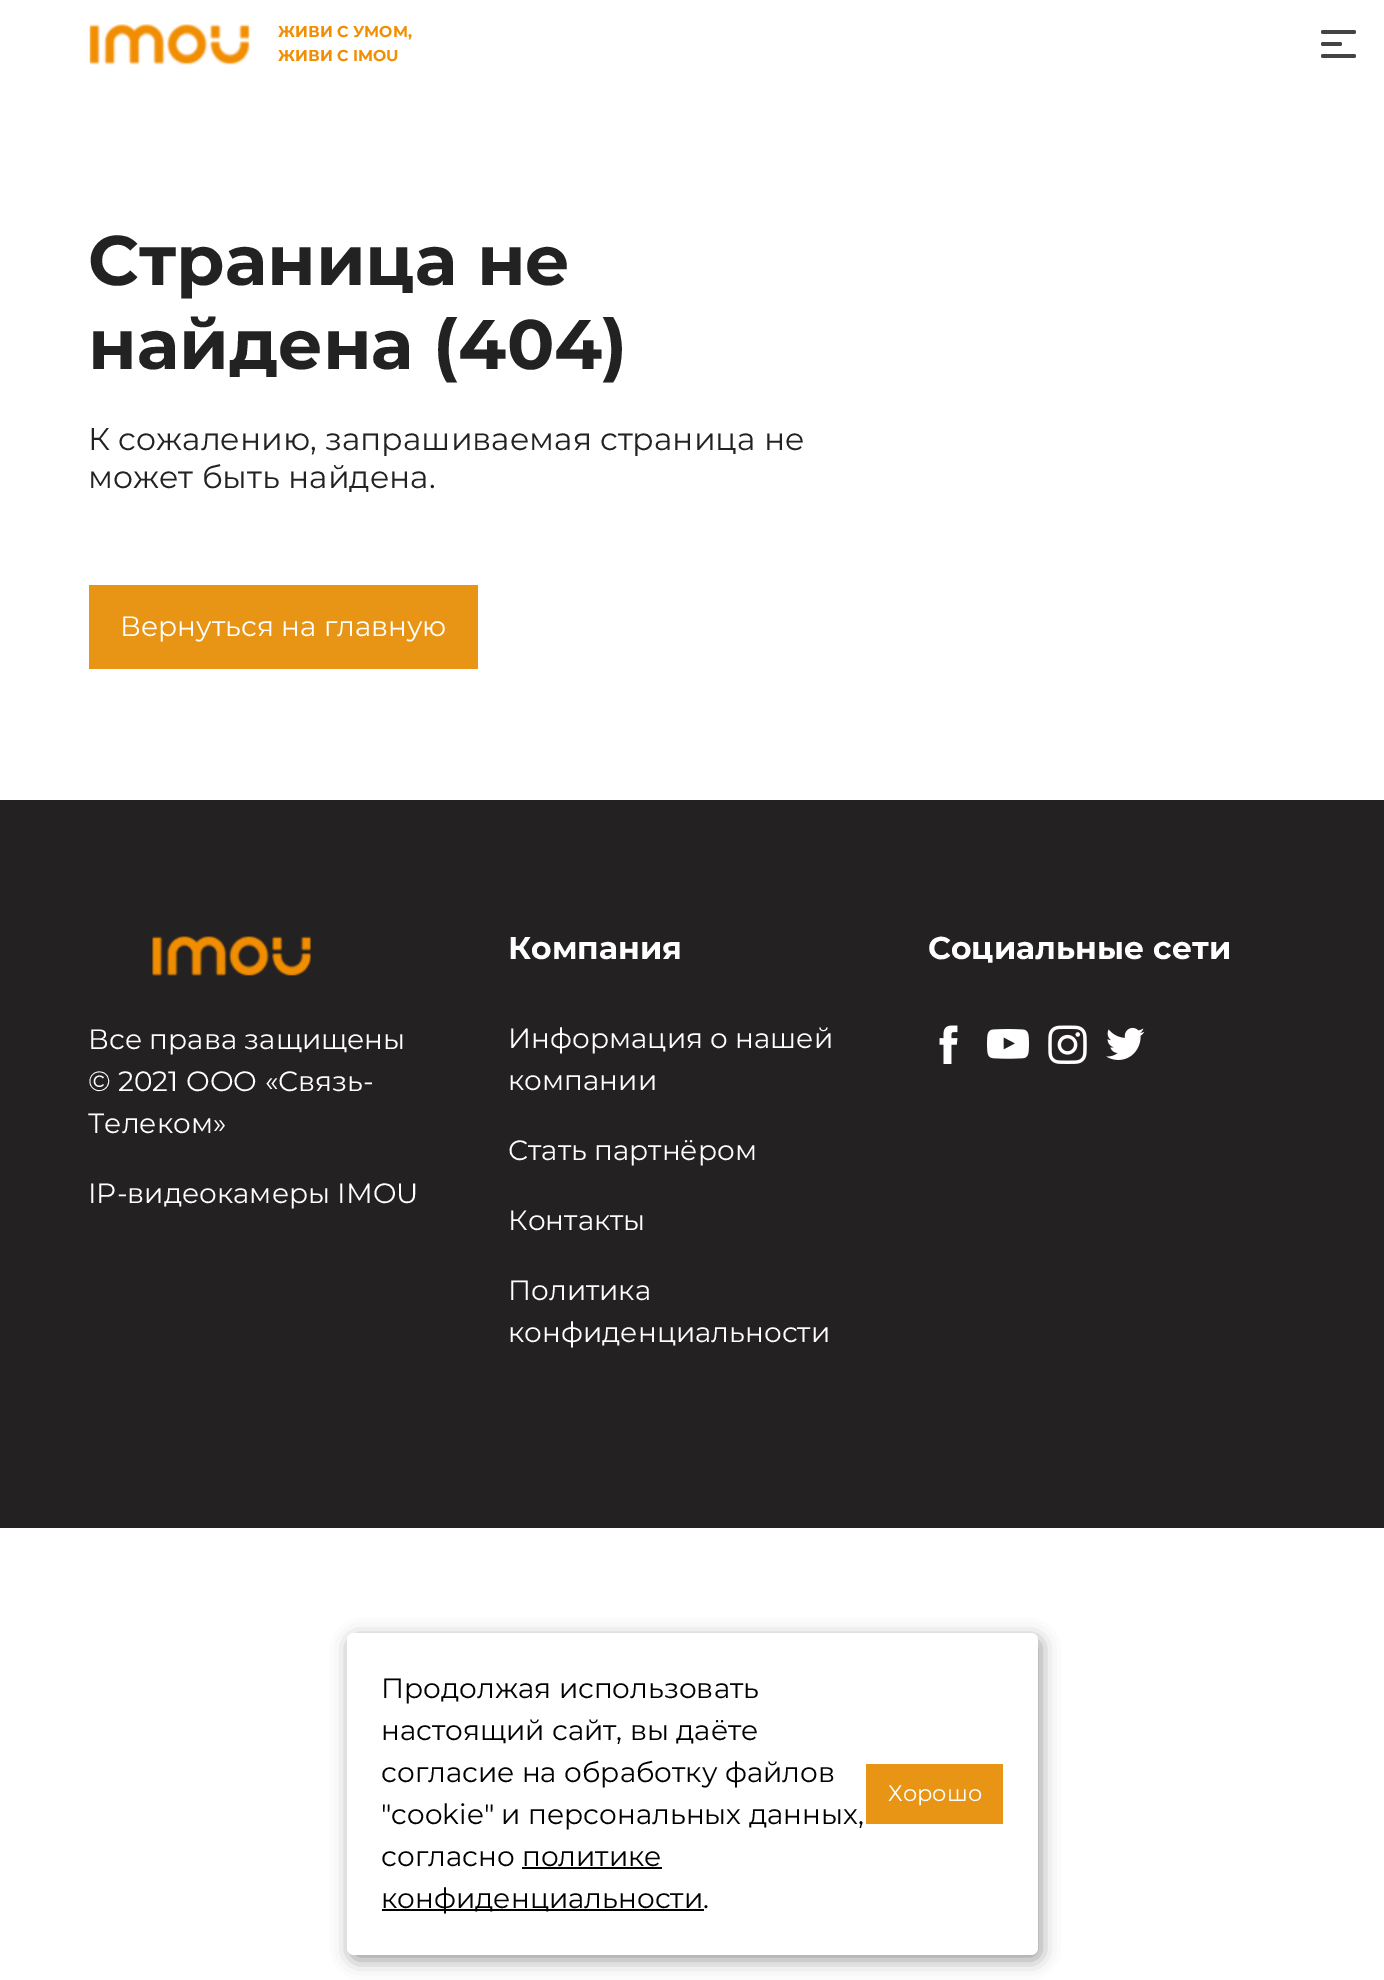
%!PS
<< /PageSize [1384 1980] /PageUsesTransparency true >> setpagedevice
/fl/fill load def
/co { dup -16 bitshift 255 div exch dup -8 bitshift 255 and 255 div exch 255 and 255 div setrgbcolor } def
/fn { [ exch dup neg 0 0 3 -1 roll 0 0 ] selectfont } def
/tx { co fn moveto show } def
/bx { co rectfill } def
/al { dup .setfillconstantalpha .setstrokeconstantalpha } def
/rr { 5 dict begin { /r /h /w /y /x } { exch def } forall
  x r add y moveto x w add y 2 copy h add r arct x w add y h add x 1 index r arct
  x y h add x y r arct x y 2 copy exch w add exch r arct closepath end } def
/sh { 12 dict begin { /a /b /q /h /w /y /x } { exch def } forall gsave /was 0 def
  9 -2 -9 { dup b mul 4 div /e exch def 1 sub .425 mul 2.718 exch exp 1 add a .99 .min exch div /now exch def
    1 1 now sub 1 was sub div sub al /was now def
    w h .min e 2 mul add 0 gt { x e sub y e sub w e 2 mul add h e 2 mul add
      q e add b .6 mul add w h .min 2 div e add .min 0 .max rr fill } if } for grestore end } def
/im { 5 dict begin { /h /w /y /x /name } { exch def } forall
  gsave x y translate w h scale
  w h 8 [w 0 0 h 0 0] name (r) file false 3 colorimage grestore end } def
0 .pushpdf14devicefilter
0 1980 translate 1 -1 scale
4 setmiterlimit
0 0 1384 1980 16#FFFFFF bx
(media/1.raw) 89 24 162 41 im
16#444444 co
1321 30 35 4 2 rr fl
1321 42 21 4 2 rr fl
1321 54 35 4 2 rr fl
89 585 389 84 16#E89515 bx
0 800 1384 728 16#232122 bx
(media/2.raw) 939 1025 19 39 im
(media/3.raw) 987 1029 42 30 im
(media/4.raw) 1048 1025 39 39 im
(media/5.raw) 1106 1027 39 33 im
(media/6.raw) 152 936 159 40 im
16#000000 co
350 1638 691 322 7 9 .4 sh
16#FFFFFF co
347 1633 691 322 7 rr fl
522 1867 140 2 16#000000 bx
382 1909 322 2 16#000000 bx
866 1764 137 60 16#E89515 bx
(ЖИВИ С УМОМ,) 278 37 /Montserrat-Bold 15.75 16#F18E02 tx
(ЖИВИ С IMOU) 278 61 /Montserrat-Bold 15.75 16#F18E02 tx
(Страница не) 88 285 /Montserrat-Bold 70 16#222222 tx
(найдена \(404\)) 88 369 /Montserrat-Bold 70 16#222222 tx
(К сожалению, запрашиваемая страница не) 88 450 /Montserrat-Regular 31.5 16#222222 tx
(может быть найдена.) 88 488 /Montserrat-Regular 31.5 16#222222 tx
(Вернуться на главную) 120 636 /Montserrat-Regular 28 16#FFFFFF tx
(Компания) 508 959 /Montserrat-Bold 31.5 16#FFFFFF tx
(Информация о нашей) 508 1048 /Montserrat-Regular 28 16#FFFFFF tx
(компании) 508 1090 /Montserrat-Regular 28 16#FFFFFF tx
(Стать партнёром) 508 1160 /Montserrat-Regular 28 16#FFFFFF tx
(Контакты) 508 1230 /Montserrat-Regular 28 16#FFFFFF tx
(Политика) 508 1300 /Montserrat-Regular 28 16#FFFFFF tx
(конфиденциальности) 508 1342 /Montserrat-Regular 28 16#FFFFFF tx
(Социальные сети) 928 959 /Montserrat-Bold 31.5 16#FFFFFF tx
(Все права защищены) 88 1049 /Montserrat-Regular 28 16#FFFFFF tx
(© 2021 ООО «Связь-) 88 1091 /Montserrat-Regular 28 16#FFFFFF tx
(Телеком») 88 1133 /Montserrat-Regular 28 16#FFFFFF tx
(IP-видеокамеры IMOU) 88 1203 /Montserrat-Regular 28 16#FFFFFF tx
(Продолжая использовать) 381 1698 /Montserrat-Regular 28 16#000000 tx
(настоящий сайт, вы даёте) 381 1740 /Montserrat-Regular 28 16#000000 tx
(согласие на обработку файлов) 381 1782 /Montserrat-Regular 28 16#000000 tx
("cookie" и персональных данных,) 381 1824 /Montserrat-Regular 28 16#000000 tx
(согласно политике) 381 1866 /Montserrat-Regular 28 16#000000 tx
(конфиденциальности.) 381 1908 /Montserrat-Regular 28 16#000000 tx
(Хорошо) 888 1801 /Montserrat-Regular 22.5 16#FFFFFF tx
.poppdf14devicefilter showpage
